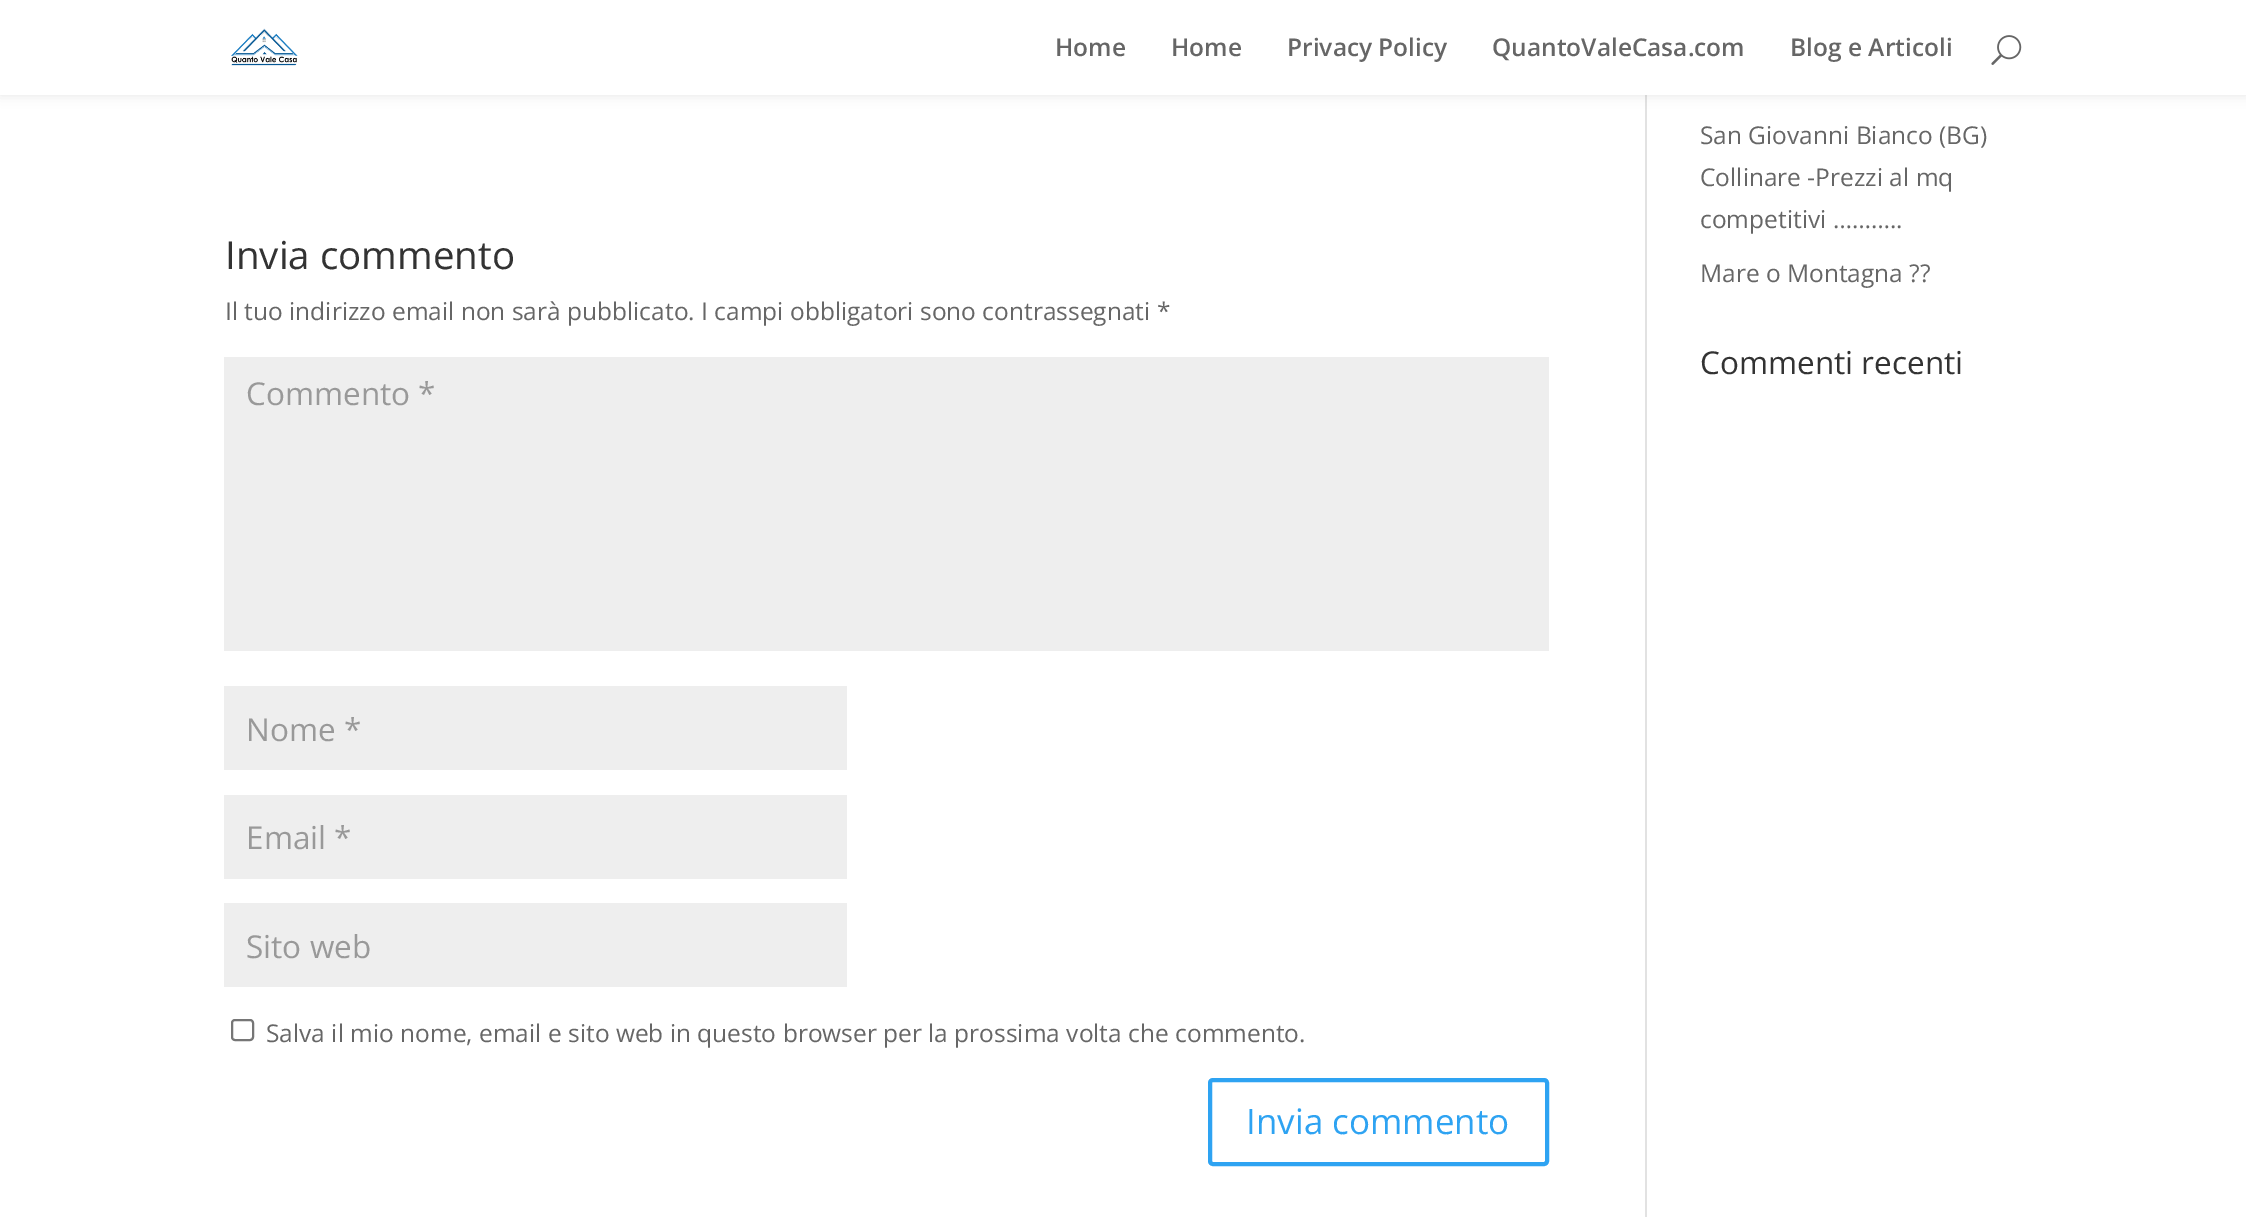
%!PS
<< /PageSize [2246 1217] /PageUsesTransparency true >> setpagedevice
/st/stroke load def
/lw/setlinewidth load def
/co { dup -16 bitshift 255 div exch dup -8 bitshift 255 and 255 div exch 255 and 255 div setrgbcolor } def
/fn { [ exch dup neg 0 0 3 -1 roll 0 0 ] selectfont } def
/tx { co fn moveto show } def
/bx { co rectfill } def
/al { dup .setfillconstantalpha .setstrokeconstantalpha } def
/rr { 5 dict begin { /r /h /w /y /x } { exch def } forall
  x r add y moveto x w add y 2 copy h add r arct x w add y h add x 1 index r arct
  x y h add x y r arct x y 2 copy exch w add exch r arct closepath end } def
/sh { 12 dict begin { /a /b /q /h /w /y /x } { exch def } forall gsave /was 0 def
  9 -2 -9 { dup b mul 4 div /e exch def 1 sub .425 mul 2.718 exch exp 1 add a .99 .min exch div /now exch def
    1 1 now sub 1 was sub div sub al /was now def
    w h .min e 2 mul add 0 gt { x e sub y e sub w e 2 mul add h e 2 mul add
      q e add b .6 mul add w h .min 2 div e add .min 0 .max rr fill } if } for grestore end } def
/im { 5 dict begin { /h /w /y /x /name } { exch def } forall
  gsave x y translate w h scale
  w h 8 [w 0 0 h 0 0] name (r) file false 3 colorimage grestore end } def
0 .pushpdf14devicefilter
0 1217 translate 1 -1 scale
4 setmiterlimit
0 0 2246 1217 16#FFFFFF bx
1645 95 2 1122 16#E2E2E2 bx
16#000000 co
0 0 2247 95 0 6 .1 sh
0 0 2246 95 16#FFFFFF bx
(media/1.raw) 231 28 67 38 im
(media/2.raw) 1991 35 31 30 im
224 357 1325 294 16#EEEEEE bx
224 686 623 84 16#EEEEEE bx
224 795 623 84 16#EEEEEE bx
224 903 623 84 16#EEEEEE bx
16#767676 co
2 lw
232 1020 21 20 3 rr st
16#2EA3F2 co
4 lw
1210 1080 337 84 3 rr st
(Home) 1055 56 /OpenSans-SemiBold 24.5 16#666666 tx
(Home) 1171 56 /OpenSans-SemiBold 24.5 16#666666 tx
(Privacy Policy) 1287 56 /OpenSans-SemiBold 24.5 16#666666 tx
(QuantoValeCasa.com) 1492 56 /OpenSans-SemiBold 24.5 16#666666 tx
(Blog e Articoli) 1790 56 /OpenSans-SemiBold 24.5 16#666666 tx
(Invia commento) 225 269 /OpenSans-Regular 38.5 16#333333 tx
(Il tuo indirizzo email non sarà pubblicato. I campi obbligatori sono contrassegnati *) 225 320 /OpenSans-Regular 24.5 16#666666 tx
(Commento *) 246 405 /OpenSans-Regular 31.5 16#999999 tx
(Nome *) 246 741 /OpenSans-Regular 31.5 16#999999 tx
(Email *) 246 849 /OpenSans-Regular 31.5 16#999999 tx
(Sito web) 246 958 /OpenSans-Regular 31.5 16#999999 tx
(Salva il mio nome, email e sito web in questo browser per la prossima volta che commento.) 266 1042 /OpenSans-Regular 24.5 16#666666 tx
(Invia commento) 1246 1134 /OpenSans-Regular 35 16#2EA3F2 tx
(San Giovanni Bianco \(BG\)) 1700 144 /OpenSans-Regular 24.5 16#666666 tx
(Collinare -Prezzi al mq) 1700 186 /OpenSans-Regular 24.5 16#666666 tx
(competitivi ………..) 1700 228 /OpenSans-Regular 24.5 16#666666 tx
(Mare o Montagna ??) 1700 282 /OpenSans-Regular 24.5 16#666666 tx
(Commenti recenti) 1700 374 /OpenSans-Regular 31.5 16#333333 tx
.poppdf14devicefilter showpage
